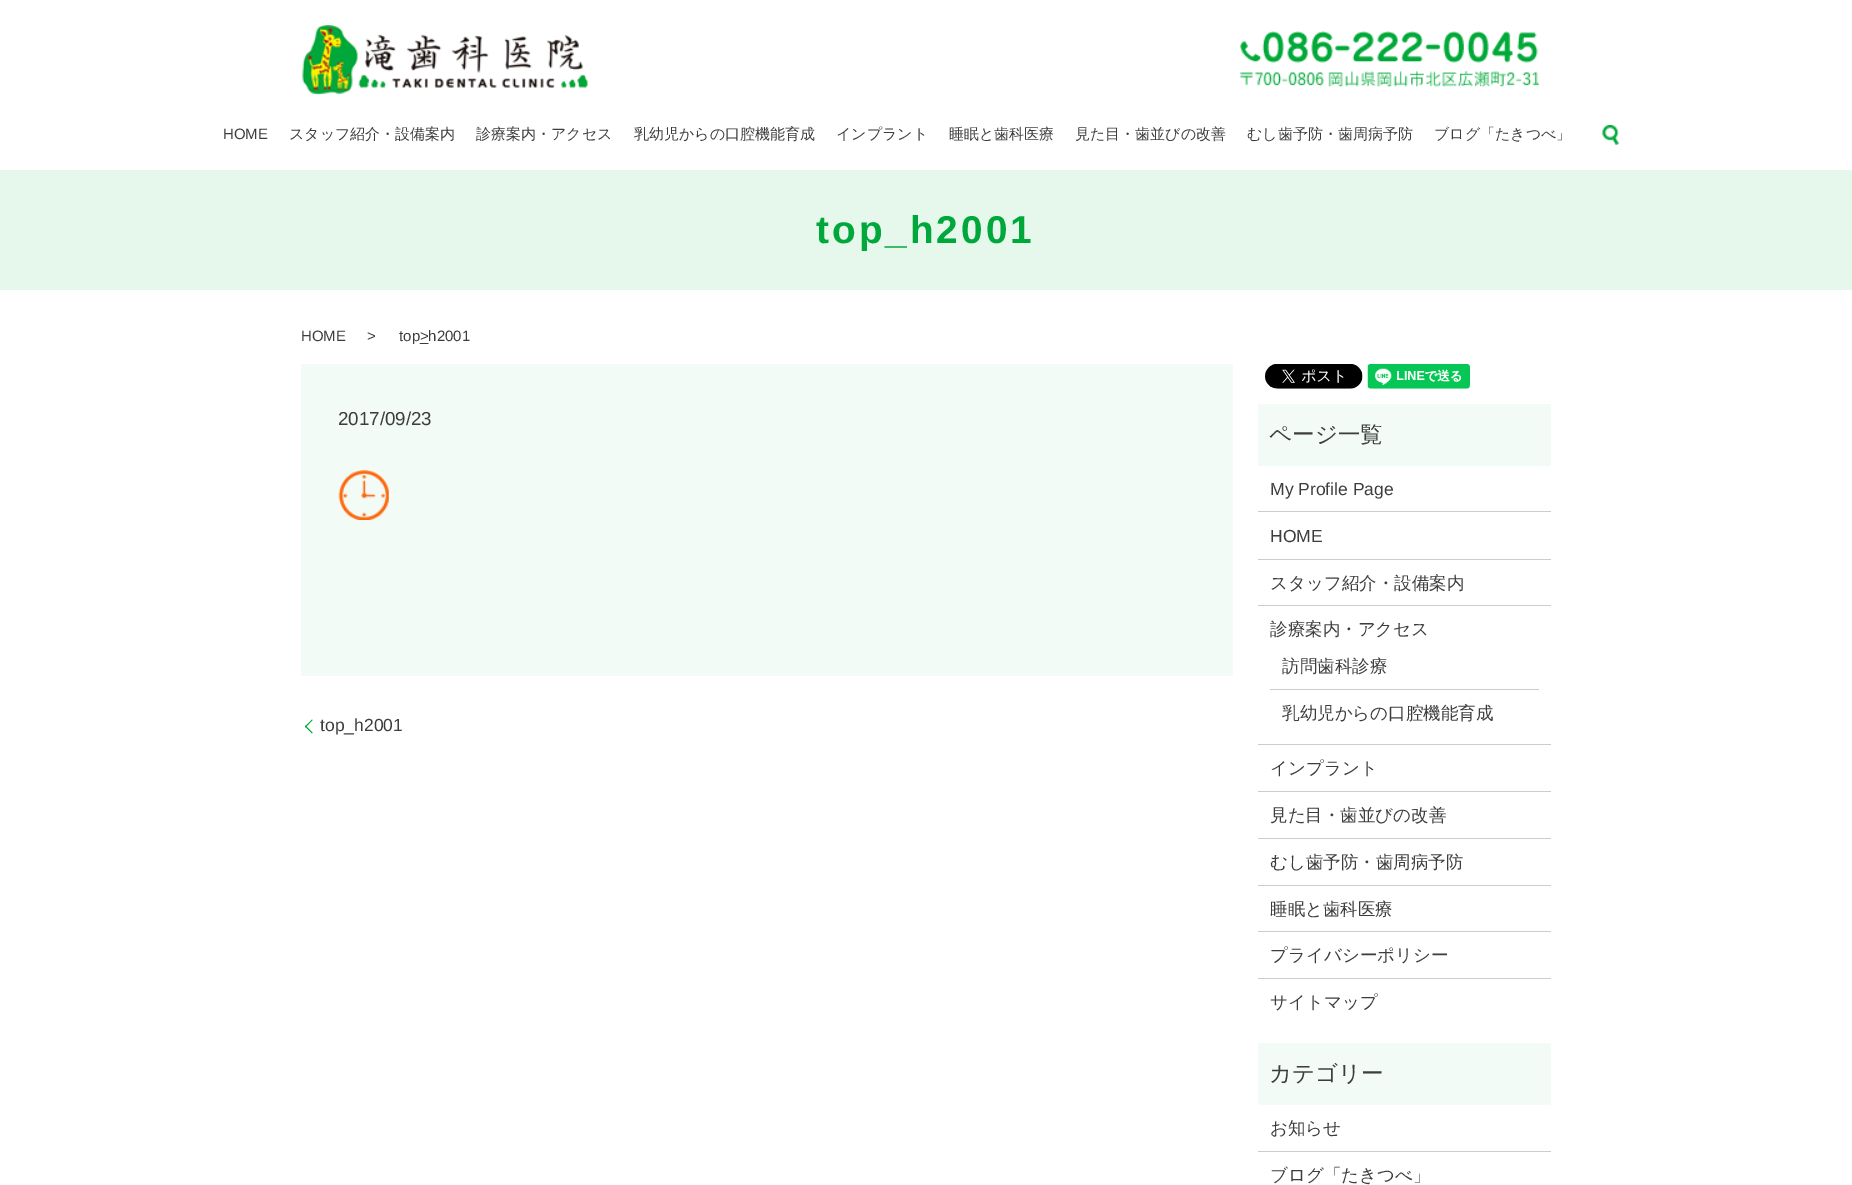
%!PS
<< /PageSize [1852 1185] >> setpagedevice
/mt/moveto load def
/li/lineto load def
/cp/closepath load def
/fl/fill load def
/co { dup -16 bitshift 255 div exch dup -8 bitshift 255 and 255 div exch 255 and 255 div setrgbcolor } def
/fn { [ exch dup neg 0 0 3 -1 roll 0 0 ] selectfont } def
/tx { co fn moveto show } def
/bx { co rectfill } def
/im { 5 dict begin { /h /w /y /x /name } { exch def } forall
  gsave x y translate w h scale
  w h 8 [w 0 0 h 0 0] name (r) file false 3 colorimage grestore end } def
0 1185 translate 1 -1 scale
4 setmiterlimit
0 0 1852 1185 16#FFFFFF bx
(media/1.raw) 302 25 286 70 im
(media/2.raw) 1240 31 299 56 im
(media/3.raw) 1602 125 17 20 im
0 170 1852 120 16#E6F7EC bx
301 364 932 312 16#F3FBF6 bx
(media/4.raw) 338 470 51 50 im
16#00A73A co
305 726.5 mt 312 719.5 li 312.5 720 li 305.5 727.5 li cp fl
312 733.5 mt 305 726.5 li 305.5 725.5 li 312.5 732.5 li cp fl
(media/5.raw) 1265 364 98 25 im
(media/6.raw) 1367 364 103 25 im
1258 404 293 62 16#F2FBF5 bx
1258 511 293 1 16#CCCCCC bx
1258 559 293 1 16#CCCCCC bx
1258 605 293 1 16#CCCCCC bx
1258 744 293 1 16#CCCCCC bx
1270 689 269 1 16#CCCCCC bx
1258 791 293 1 16#CCCCCC bx
1258 838 293 1 16#CCCCCC bx
1258 885 293 1 16#CCCCCC bx
1258 931 293 1 16#CCCCCC bx
1258 978 293 1 16#CCCCCC bx
1258 1043 293 62 16#F2FBF5 bx
1258 1151 293 1 16#CCCCCC bx
(HOME) 223 139 /LiberationSans-Regular 15 16#3D3D3D tx
(スタッフ紹介・設備案内) 289 139 /WenQuanYiZenHei-Medium 15 16#3D3D3D tx
(診療案内・アクセス) 476 139 /WenQuanYiZenHei-Medium 15 16#3D3D3D tx
(乳幼児からの口腔機能育成) 634 139 /WenQuanYiZenHei-Medium 15 16#3D3D3D tx
(インプラント) 836 139 /WenQuanYiZenHei-Medium 15 16#3D3D3D tx
(睡眠と歯科医療) 949 139 /WenQuanYiZenHei-Medium 15 16#3D3D3D tx
(見た目・歯並びの改善) 1075 139 /WenQuanYiZenHei-Medium 15 16#3D3D3D tx
(むし歯予防・歯周病予防) 1247 139 /WenQuanYiZenHei-Medium 15 16#3D3D3D tx
(ブログ「たきつべ」) 1434 139 /WenQuanYiZenHei-Medium 15 16#3D3D3D tx
/LiberationSans-Bold 38.75 fn
16#00A73A co
816 243 mt 3 0 (top_h2001) ashow
(HOME) 301 341 /LiberationSans-Regular 15 16#3D3D3D tx
(>) 367 341 /LiberationSans-Regular 15 16#3D3D3D tx
(>) 420 341 /LiberationSans-Regular 15 16#3D3D3D tx
(top_h2001) 399 341 /LiberationSans-Regular 15 16#3D3D3D tx
(2017/09/23) 338 425 /LiberationSans-Regular 18.75 16#3D3D3D tx
(top_h2001) 320 731 /LiberationSans-Regular 17.5 16#3D3D3D tx
(ページ一覧) 1269 442 /WenQuanYiZenHei-Medium 22.5 16#3D3D3D tx
(My Profile Page) 1270 495 /LiberationSans-Regular 17.5 16#3D3D3D tx
(HOME) 1270 542 /LiberationSans-Regular 17.5 16#3D3D3D tx
(スタッフ紹介・設備案内) 1270 589 /WenQuanYiZenHei-Medium 17.5 16#3D3D3D tx
(診療案内・アクセス) 1270 635 /WenQuanYiZenHei-Medium 17.5 16#3D3D3D tx
(訪問歯科診療) 1282 672 /WenQuanYiZenHei-Medium 17.5 16#3D3D3D tx
(乳幼児からの口腔機能育成) 1282 719 /WenQuanYiZenHei-Medium 17.5 16#3D3D3D tx
(インプラント) 1270 774 /WenQuanYiZenHei-Medium 17.5 16#3D3D3D tx
(見た目・歯並びの改善) 1270 821 /WenQuanYiZenHei-Medium 17.5 16#3D3D3D tx
(むし歯予防・歯周病予防) 1270 868 /WenQuanYiZenHei-Medium 17.5 16#3D3D3D tx
(睡眠と歯科医療) 1270 915 /WenQuanYiZenHei-Medium 17.5 16#3D3D3D tx
(プライバシーポリシー) 1270 961 /WenQuanYiZenHei-Medium 17.5 16#3D3D3D tx
(サイトマップ) 1270 1008 /WenQuanYiZenHei-Medium 17.5 16#3D3D3D tx
(カテゴリー) 1269 1081 /WenQuanYiZenHei-Medium 22.5 16#3D3D3D tx
(お知らせ) 1270 1134 /WenQuanYiZenHei-Medium 17.5 16#3D3D3D tx
(ブログ「たきつべ」) 1270 1181 /WenQuanYiZenHei-Medium 17.5 16#3D3D3D tx
showpage
